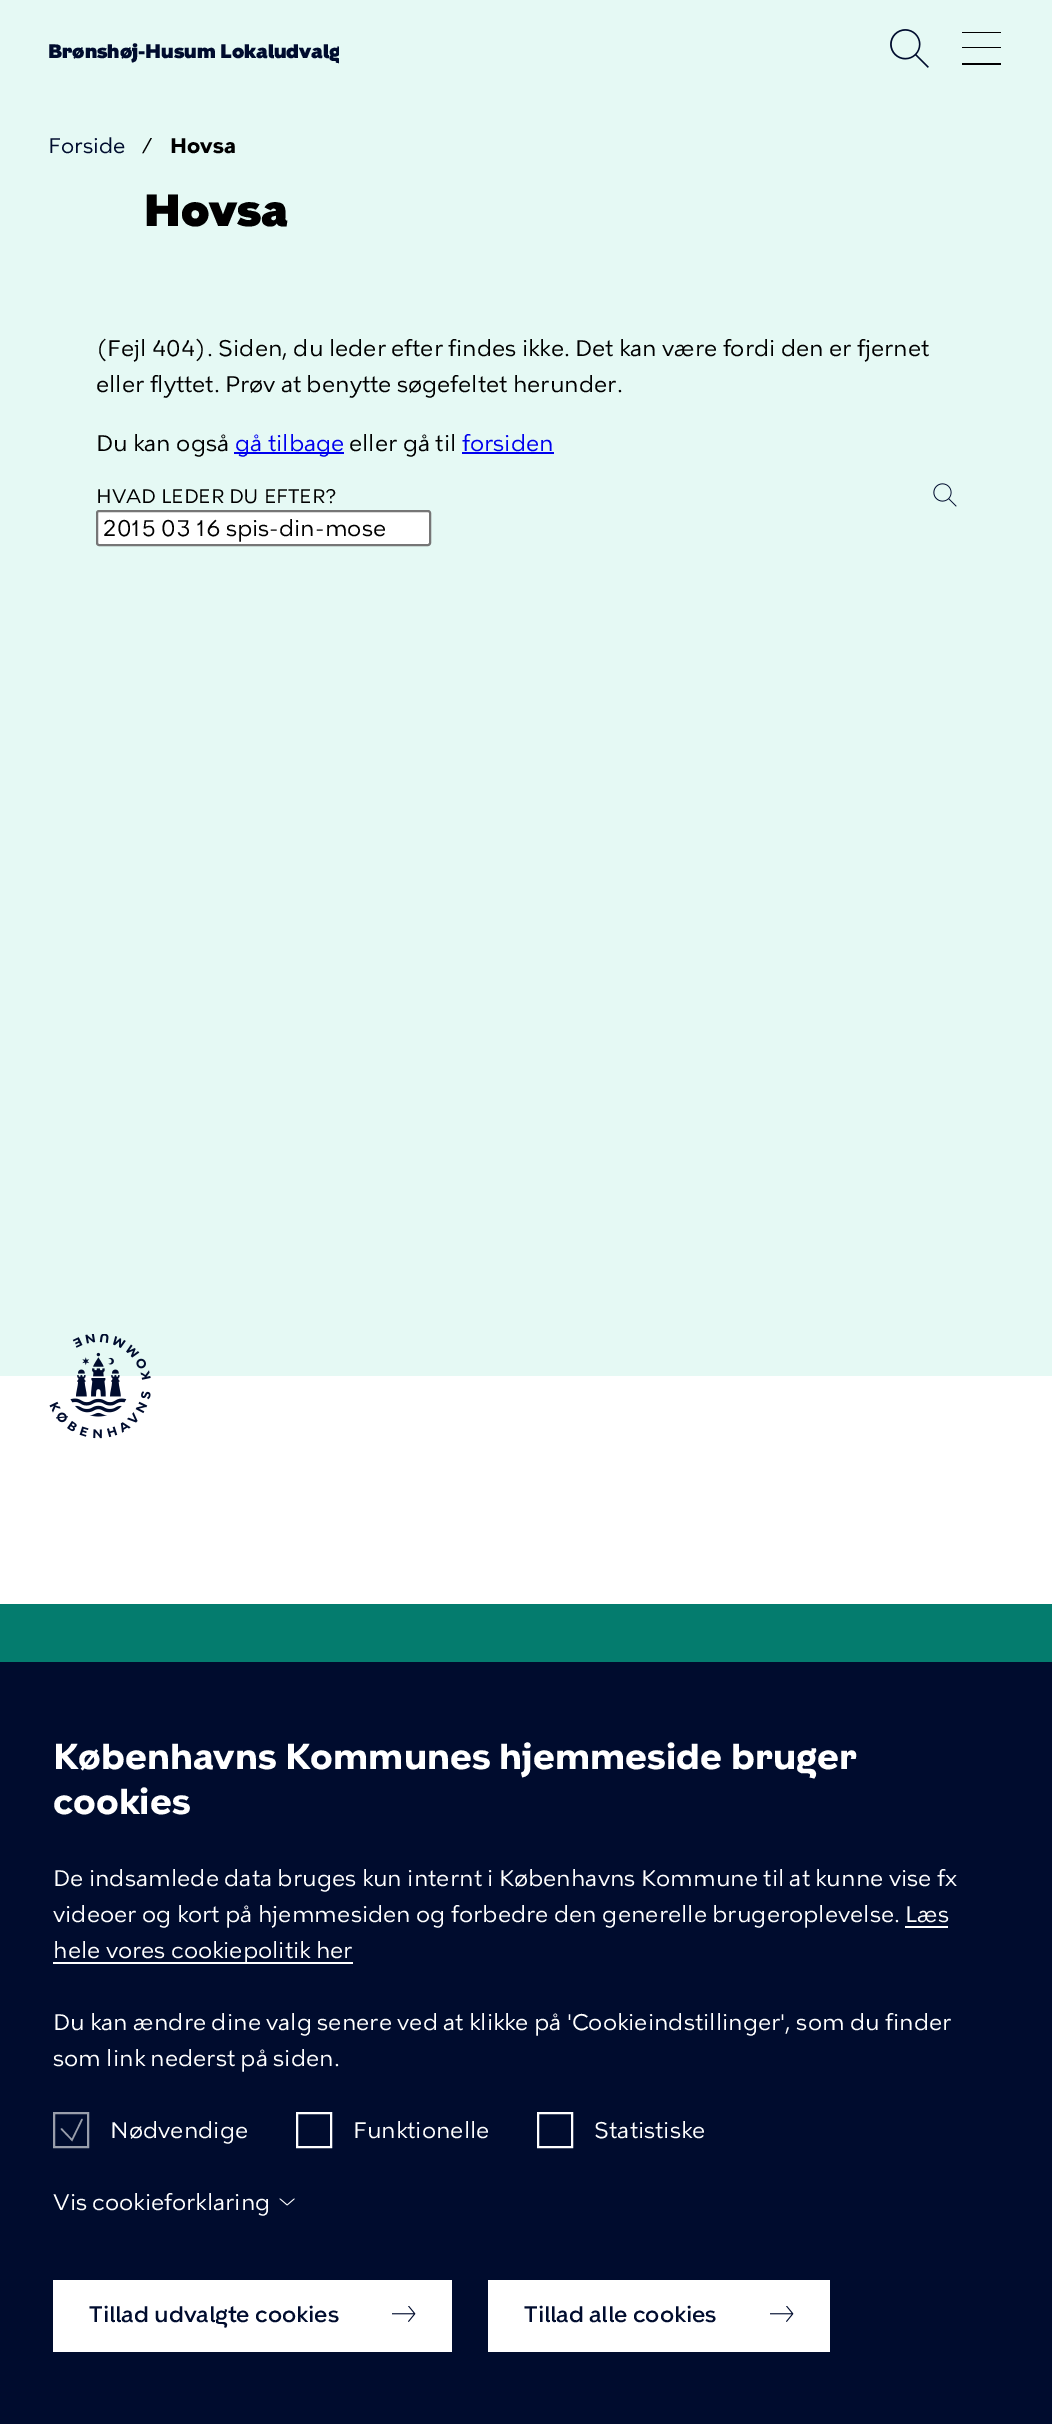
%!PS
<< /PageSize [1052 2424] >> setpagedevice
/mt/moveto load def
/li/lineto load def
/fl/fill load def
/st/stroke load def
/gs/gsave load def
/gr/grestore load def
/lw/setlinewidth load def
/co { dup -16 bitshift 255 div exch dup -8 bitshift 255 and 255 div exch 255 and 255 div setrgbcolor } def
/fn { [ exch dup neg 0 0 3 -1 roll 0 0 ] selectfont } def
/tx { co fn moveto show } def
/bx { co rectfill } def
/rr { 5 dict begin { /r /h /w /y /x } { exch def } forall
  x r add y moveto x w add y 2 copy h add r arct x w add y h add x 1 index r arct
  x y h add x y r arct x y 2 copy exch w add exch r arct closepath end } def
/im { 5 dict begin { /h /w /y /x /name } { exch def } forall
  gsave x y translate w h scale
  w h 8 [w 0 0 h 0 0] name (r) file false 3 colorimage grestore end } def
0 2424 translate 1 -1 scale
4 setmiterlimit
0 0 1052 2424 16#E5F9F4 bx
(media/1.raw) 890 29 39 39 im
962 32 39 1 16#000000 bx
962 47 39 1 16#000000 bx
962 63 39 2 16#000000 bx
234 452 110 2 16#0000EE bx
462 452 92 2 16#0000EE bx
(media/2.raw) 933 483 24 24 im
16#FFFFFF co
97 511 333 34 2 rr gs fl gr
16#767676 co
2 lw
st
0 1376 1052 228 16#FFFFFF bx
(media/3.raw) 49 1334 102 105 im
0 1604 1052 58 16#047C6E bx
0 1662 1052 762 16#000C2E bx
905 1926 43 2 16#FFFFFF bx
53 1962 300 2 16#FFFFFF bx
16#999EAB co
54 2113 34 34 rectstroke
1.5 lw
1 setlinecap
61.5 2129 mt 72 2140 li 82 2119.5 li st
16#FFFFFF co
2 lw
0 setlinecap
297 2113 34 34 rectstroke
538 2113 34 34 rectstroke
(media/4.raw) 279 2198 16 8 im
53 2280 399 72 16#FFFFFF bx
(media/5.raw) 392 2306 24 16 im
488 2280 342 72 16#FFFFFF bx
(media/5.raw) 770 2306 24 16 im
gs
48 38 291 30 rectclip
(Brønshøj-Husum Lokaludvalg) 48 58 /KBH-Black 19.5 16#000C2E tx
gr
(Forside) 48 153 /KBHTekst-Regular 21 16#000C2E tx
(/) 142 153 /KBHTekst-Regular 21 16#000000 tx
(Hovsa) 170 153 /KBHTekst-Bold 21 16#000000 tx
(Hovsa) 144 226 /KBH-Black 45 16#000000 tx
(\(Fejl 404\). Siden, du leder efter findes ikke. Det kan være fordi den er fjernet) 96 356 /KBHTekst-Regular 22.5 16#000000 tx
(eller flyttet. Prøv at benytte søgefeltet herunder.) 96 392 /KBHTekst-Regular 22.5 16#000000 tx
(Du kan også) 96 451 /KBHTekst-Regular 22.5 16#000000 tx
(gå tilbage) 235 451 /KBHTekst-Regular 22.5 16#0000EE tx
(eller gå til) 349 451 /KBHTekst-Regular 22.5 16#000000 tx
(forsiden) 462 451 /KBHTekst-Regular 22.5 16#0000EE tx
(HVAD LEDER DU EFTER?) 96 503 /KBHTekst-Regular 19.5 16#000000 tx
(2015 03 16 spis-din-mose) 102 536 /KBHTekst-Regular 22.5 16#000000 tx
(Københavns Kommunes hjemmeside bruger) 53 1769 /KBH-Bold 36 16#FFFFFF tx
(cookies) 53 1814 /KBH-Bold 36 16#FFFFFF tx
(De indsamlede data bruges kun internt i Københavns Kommune til at kunne vise fx) 53 1886 /KBHTekst-Regular 22.5 16#FFFFFF tx
(videoer og kort på hjemmesiden og forbedre den generelle brugeroplevelse. Læs) 53 1922 /KBHTekst-Regular 22.5 16#FFFFFF tx
(hele vores cookiepolitik her) 53 1958 /KBHTekst-Regular 22.5 16#FFFFFF tx
(Du kan ændre dine valg senere ved at klikke på 'Cookieindstillinger', som du finder) 53 2030 /KBHTekst-Regular 22.5 16#FFFFFF tx
(som link nederst på siden.) 53 2066 /KBHTekst-Regular 22.5 16#FFFFFF tx
(Nødvendige) 110 2138 /KBHTekst-Regular 22.5 16#FFFFFF tx
(Funktionelle) 353 2138 /KBHTekst-Regular 22.5 16#FFFFFF tx
(Statistiske) 594 2138 /KBHTekst-Regular 22.5 16#FFFFFF tx
(Vis cookieforklaring) 53 2210 /KBHTekst-Regular 22.5 16#FFFFFF tx
(Tillad udvalgte cookies) 89 2322 /KBH-Medium 22.5 16#000C2E tx
(Tillad alle cookies) 524 2322 /KBH-Medium 22.5 16#000C2E tx
showpage
